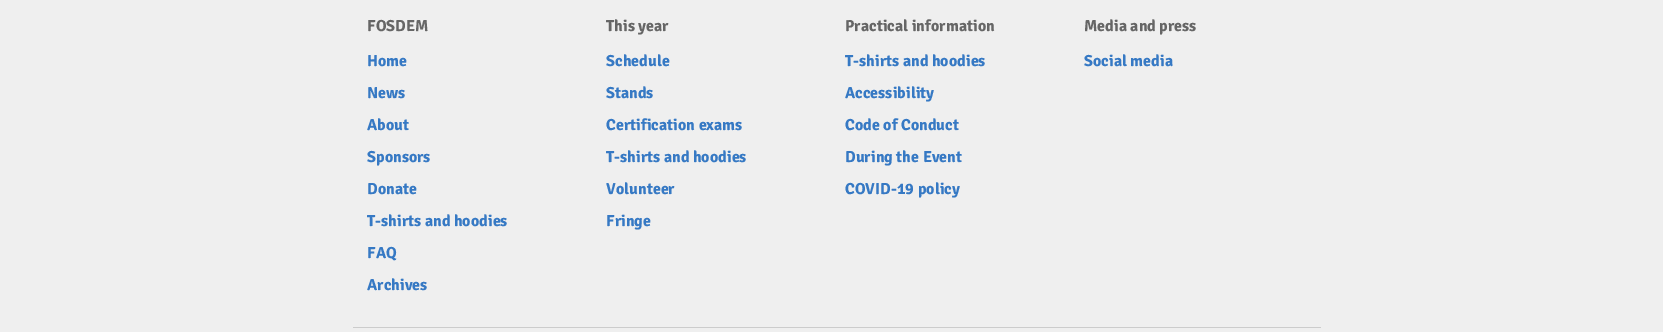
%!PS
<< /PageSize [1663 332] >> setpagedevice
/co { dup -16 bitshift 255 div exch dup -8 bitshift 255 and 255 div exch 255 and 255 div setrgbcolor } def
/fn { [ exch dup neg 0 0 3 -1 roll 0 0 ] selectfont } def
/tx { co fn moveto show } def
/bx { co rectfill } def
0 332 translate 1 -1 scale
4 setmiterlimit
0 0 1663 332 16#EFEFEF bx
353 327 968 1 16#CCCCCC bx
(FOSDEM) 367 31 /Signika-Bold 16 16#666666 tx
(Home) 367 66 /Signika-Bold 16 16#3679C4 tx
(News) 367 98 /Signika-Bold 16 16#3679C4 tx
(About) 367 130 /Signika-Bold 16 16#3679C4 tx
(Sponsors) 367 162 /Signika-Bold 16 16#3679C4 tx
(Donate) 367 194 /Signika-Bold 16 16#3679C4 tx
(T-shirts and hoodies) 367 226 /Signika-Bold 16 16#3679C4 tx
(FAQ) 367 258 /Signika-Bold 16 16#3679C4 tx
(Archives) 367 290 /Signika-Bold 16 16#3679C4 tx
(This year) 606 31 /Signika-Bold 16 16#666666 tx
(Schedule) 606 66 /Signika-Bold 16 16#3679C4 tx
(Stands) 606 98 /Signika-Bold 16 16#3679C4 tx
(Certification exams) 606 130 /Signika-Bold 16 16#3679C4 tx
(T-shirts and hoodies) 606 162 /Signika-Bold 16 16#3679C4 tx
(Volunteer) 606 194 /Signika-Bold 16 16#3679C4 tx
(Fringe) 606 226 /Signika-Bold 16 16#3679C4 tx
(Practical information) 845 31 /Signika-Bold 16 16#666666 tx
(T-shirts and hoodies) 845 66 /Signika-Bold 16 16#3679C4 tx
(Accessibility) 845 98 /Signika-Bold 16 16#3679C4 tx
(Code of Conduct) 845 130 /Signika-Bold 16 16#3679C4 tx
(During the Event) 845 162 /Signika-Bold 16 16#3679C4 tx
(COVID-19 policy) 845 194 /Signika-Bold 16 16#3679C4 tx
(Media and press) 1084 31 /Signika-Bold 16 16#666666 tx
(Social media) 1084 66 /Signika-Bold 16 16#3679C4 tx
showpage
